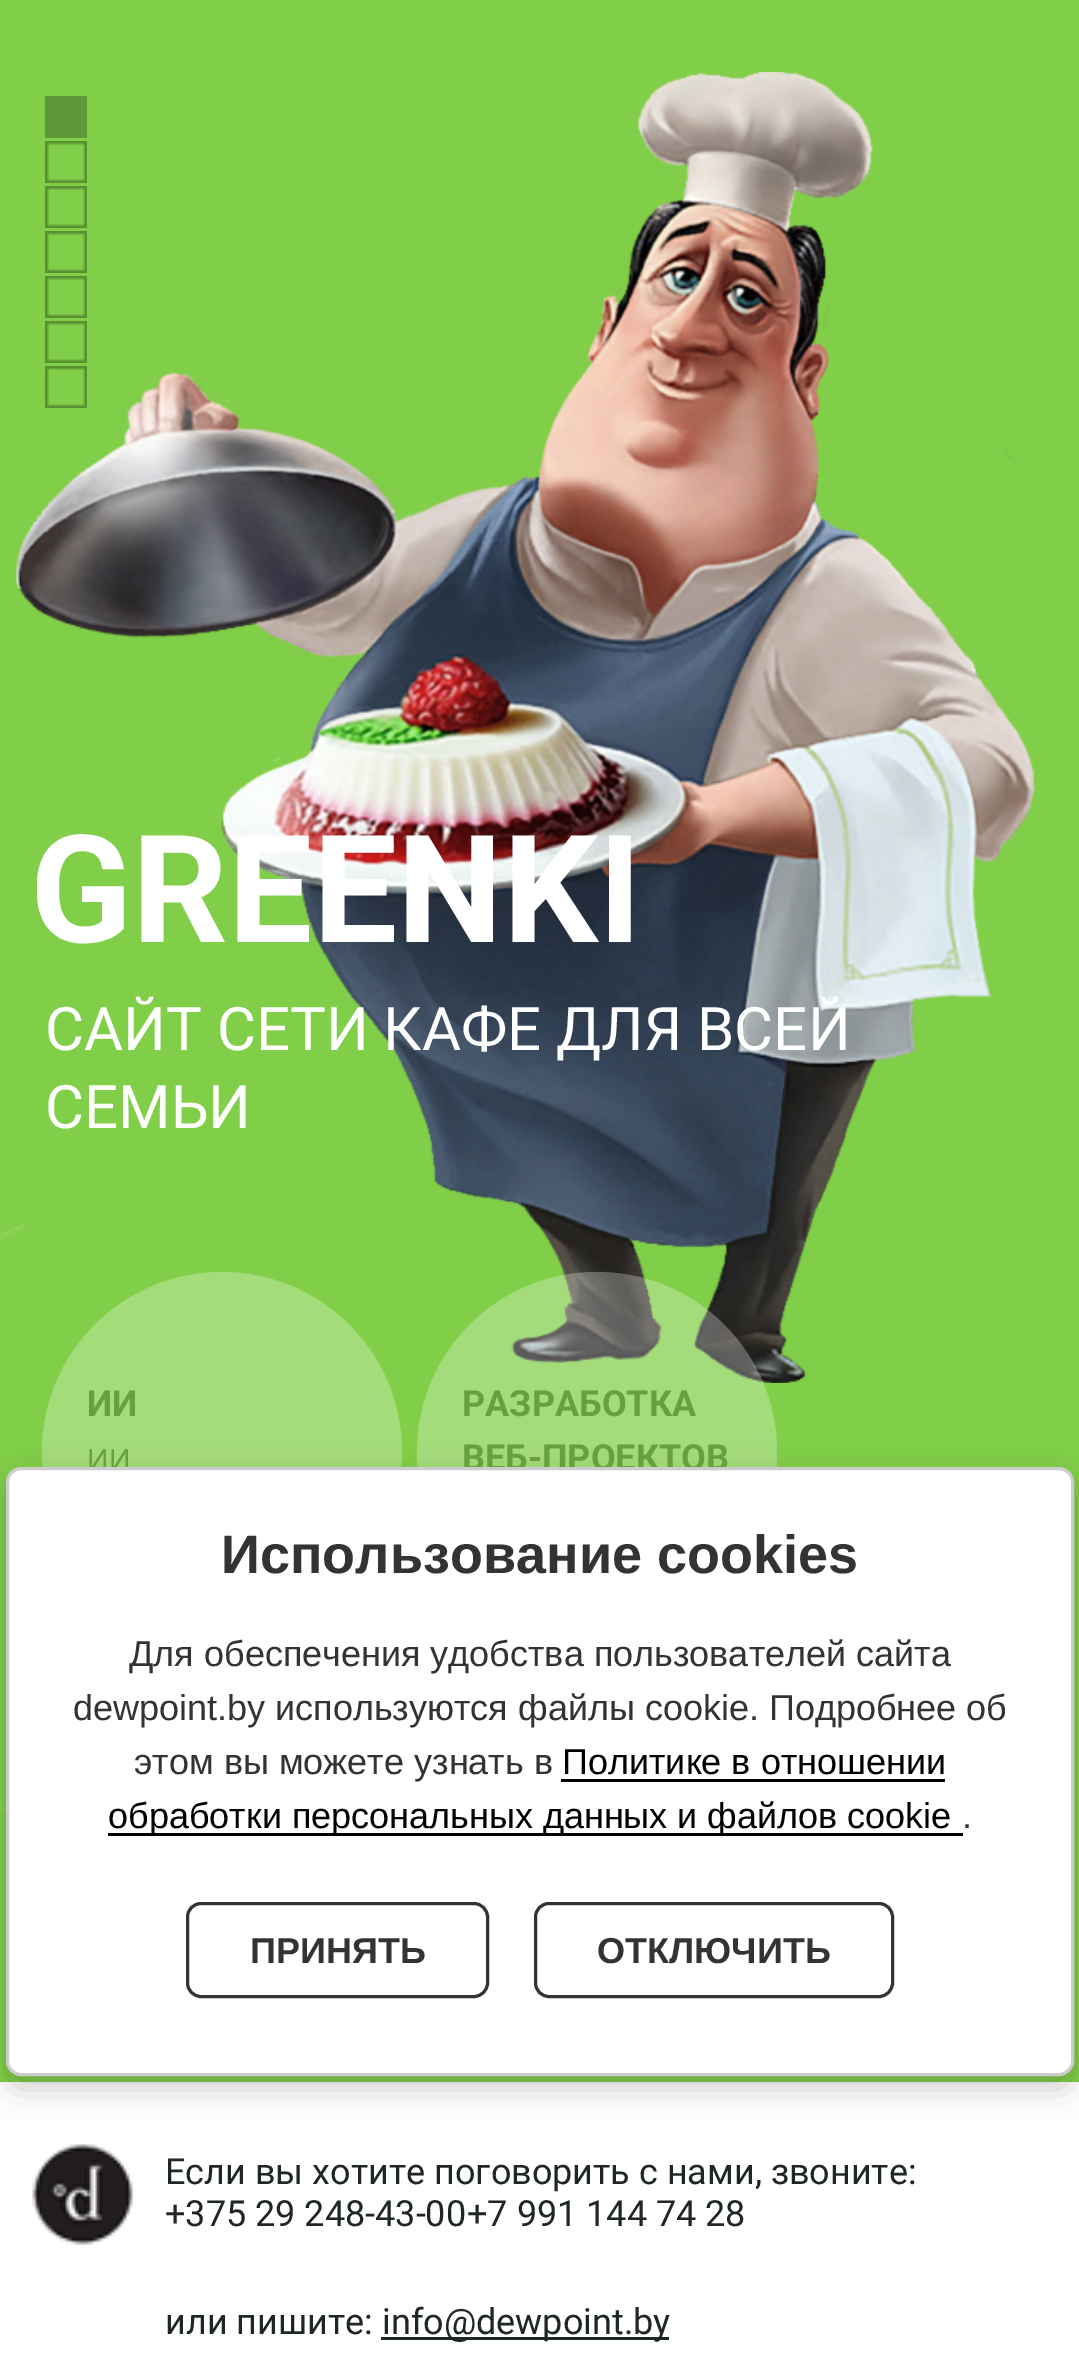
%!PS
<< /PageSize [1079 2362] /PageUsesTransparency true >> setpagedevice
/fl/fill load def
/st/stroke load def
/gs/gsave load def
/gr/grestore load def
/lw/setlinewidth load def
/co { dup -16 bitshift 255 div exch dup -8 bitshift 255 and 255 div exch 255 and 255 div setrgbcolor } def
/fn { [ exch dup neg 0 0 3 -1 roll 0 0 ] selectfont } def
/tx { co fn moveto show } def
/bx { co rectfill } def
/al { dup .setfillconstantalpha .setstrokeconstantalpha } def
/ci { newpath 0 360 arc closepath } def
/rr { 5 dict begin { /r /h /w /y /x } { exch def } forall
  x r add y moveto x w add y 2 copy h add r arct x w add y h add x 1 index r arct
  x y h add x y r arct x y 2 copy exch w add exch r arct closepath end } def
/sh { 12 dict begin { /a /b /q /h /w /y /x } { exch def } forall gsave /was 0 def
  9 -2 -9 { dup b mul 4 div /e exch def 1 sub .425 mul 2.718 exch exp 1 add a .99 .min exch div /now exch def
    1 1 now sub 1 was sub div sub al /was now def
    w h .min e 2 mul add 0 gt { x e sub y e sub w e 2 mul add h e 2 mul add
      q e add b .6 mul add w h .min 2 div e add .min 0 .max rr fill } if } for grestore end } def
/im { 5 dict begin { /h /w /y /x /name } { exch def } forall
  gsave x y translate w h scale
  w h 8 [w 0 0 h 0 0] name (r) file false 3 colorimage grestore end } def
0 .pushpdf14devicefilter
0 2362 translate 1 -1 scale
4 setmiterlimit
0 0 1079 2362 16#81CF48 bx
(media/2.raw) 15 72 1020 1311 im
45 96 42 42 16#609738 bx
(media/1.raw) 45 141 42 42 im
(media/1.raw) 45 186 42 42 im
(media/1.raw) 45 231 42 42 im
(media/1.raw) 45 276 42 42 im
(media/1.raw) 45 321 42 42 im
(media/1.raw) 45 366 42 42 im
(media/3.raw) 0 1223 27 591 im
16#A4DC7A co
222 1452 180 ci fl
0.28 al
16#FFFFFF co
597 1452 180 ci fl
1 al
0 2082 1079 280 16#FFFFFF bx
16#000000 co
6 1479 1068 609 15 15 .2 sh
(media/4.raw) 32 2144 101 101 im
381 2337 288 3 16#1F2725 bx
(GREENKI) 30 942 /Roboto-Bold 150 16#FFFFFF tx
(CАЙТ СЕТИ КАФЕ ДЛЯ ВСЕЙ) 45 1050 /Roboto-Regular 60 16#FFFFFF tx
(СЕМЬИ) 45 1128 /Roboto-Regular 60 16#FFFFFF tx
(ИИ) 87 1416 /Roboto-Bold 36 16#66A13E tx
(ИИ) 87 1470 /LiberationSans-Regular 30 16#66A13E tx
(РАЗРАБОТКА) 462 1416 /Roboto-Bold 36 16#66A13E tx
(ВЕБ-ПРОЕКТОВ) 462 1470 /Roboto-Bold 36 16#66A13E tx
16#FFFFFF co
7.5 1468.5 1065 606 13.5 rr gs fl gr
16#CCCCCC co
3 lw
st
(Использование cookies) 221 1573 /LiberationSans-Bold 54 16#333333 tx
(Для обеспечения удобства пользователей сайта) 129 1666 /LiberationSans-Regular 36 16#333333 tx
(dewpoint.by используются файлы cookie. Подробнее об) 73 1720 /LiberationSans-Regular 36 16#333333 tx
(этом вы можете узнать в) 134 1774 /LiberationSans-Regular 36 16#333333 tx
(Политике в отношении) 562 1774 /LiberationSans-Regular 36 16#000000 tx
561 1779 384 3 16#000000 bx
108 1833 855 3 16#000000 bx
(обработки персональных данных и файлов cookie) 108 1828 /LiberationSans-Regular 36 16#000000 tx
(.) 962 1828 /LiberationSans-Regular 36 16#333333 tx
187.5 1903.5 300 93 13.5 rr st
(ПРИНЯТЬ) 250 1963 /LiberationSans-Bold 36 16#333333 tx
535.5 1903.5 357 93 13.5 rr st
(ОТКЛЮЧИТЬ) 597 1963 /LiberationSans-Bold 36 16#333333 tx
(Если вы хотите поговорить с нами, звоните:) 165 2184 /Roboto-Regular 36 16#1F2725 tx
(+375 29 248-43-00) 165 2226 /Roboto-Regular 36 16#1F2725 tx
(+7 991 144 74 28) 467 2226 /Roboto-Regular 36 16#1F2725 tx
(или пишите:) 165 2334 /Roboto-Regular 36 16#1F2725 tx
(info@dewpoint.by) 382 2334 /Roboto-Regular 36 16#1F2725 tx
.poppdf14devicefilter showpage
